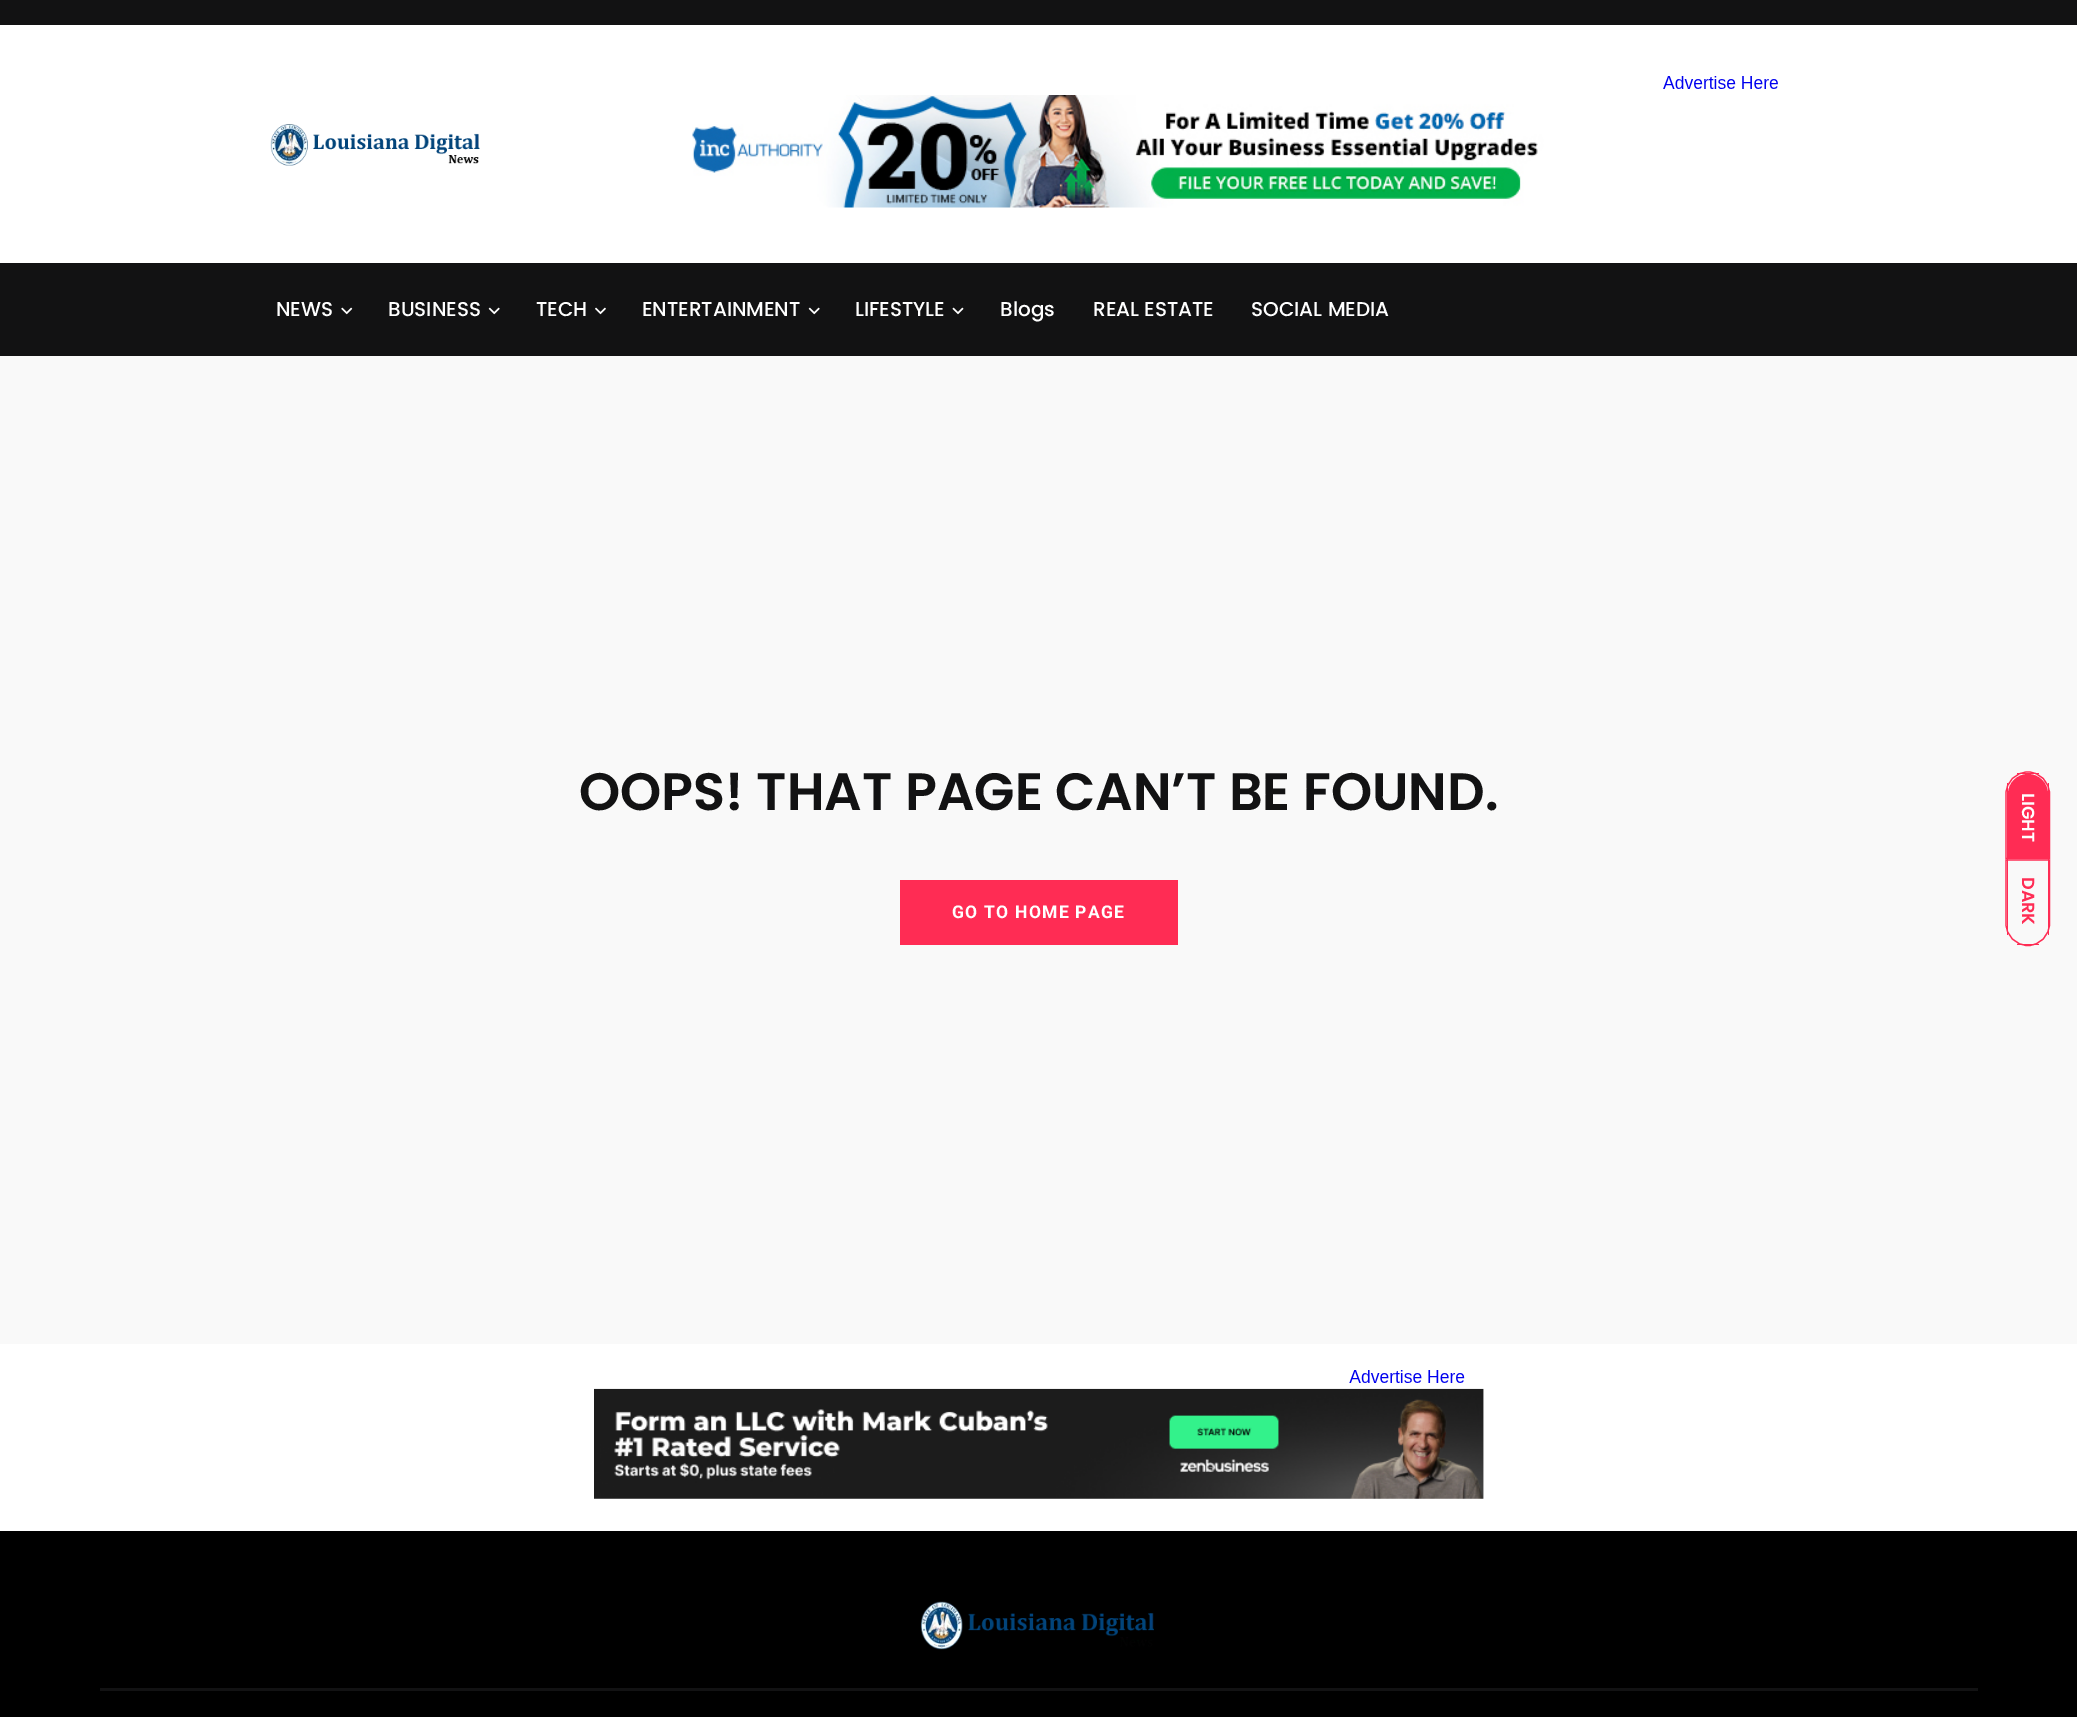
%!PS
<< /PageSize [2077 1717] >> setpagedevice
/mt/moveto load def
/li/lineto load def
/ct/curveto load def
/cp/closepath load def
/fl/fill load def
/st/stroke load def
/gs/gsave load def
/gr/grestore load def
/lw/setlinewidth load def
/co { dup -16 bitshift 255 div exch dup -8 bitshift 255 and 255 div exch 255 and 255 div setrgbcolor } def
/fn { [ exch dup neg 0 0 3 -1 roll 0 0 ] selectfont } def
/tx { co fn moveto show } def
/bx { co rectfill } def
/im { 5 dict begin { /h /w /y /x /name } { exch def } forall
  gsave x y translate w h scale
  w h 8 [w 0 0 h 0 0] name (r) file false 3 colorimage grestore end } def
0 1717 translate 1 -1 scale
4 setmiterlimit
0 0 2077 1717 16#FFFFFF bx
0 0 2077 25 16#121213 bx
(media/1.raw) 270 124 210 42 im
(media/2.raw) 692 76 1086 132 im
0 263 2077 93 16#121213 bx
(media/3.raw) 341 307 12 8 im
(media/4.raw) 488 307 12 8 im
(media/5.raw) 595 307 11 8 im
(media/4.raw) 808 307 12 8 im
(media/6.raw) 952 307 12 8 im
0 356 2077 988 16#F9F9F9 bx
900 880 278 65 16#FF2C54 bx
(media/7.raw) 594 1370 890 129 im
0 1531 2077 186 16#000000 bx
(media/8.raw) 920 1601 234 49 im
100 1688 1878 3 16#121213 bx
16#FF2C54 co
2048 794 mt 2048 858 li 2008 858 li 2008 794 li 2008 783 2017 774 2028 774 ct 2039 774 2048 783 2048 794 ct cp fl
1.2 lw
2049.5 794 mt 2049.5 858.5 li 2006 858.5 li 2006 794 li 2006 782 2015.5 772 2028 772 ct 2040 772 2049.5 782 2049.5 794 ct cp st
2048 783 1 76 16#FF2C54 bx
2007 783 1 76 16#FF2C54 bx
2017 773 22 1 16#FF2C54 bx
2049.5 860 mt 2049.5 923.5 li 2049.5 935.5 2040 945.5 2028 945.5 ct 2015.5 945.5 2006 935.5 2006 923.5 ct 2006 860 li cp st
2048 859 1 76 16#FF2C54 bx
2017 944 22 1 16#FF2C54 bx
2007 859 1 76 16#FF2C54 bx
(NEWS) 276 316 /Poppins-Medium 20 16#FFFFFF tx
(BUSINESS) 388 316 /Poppins-Medium 20 16#FFFFFF tx
(TECH) 536 316 /Poppins-Medium 20 16#FFFFFF tx
(ENTERTAINMENT) 642 316 /Poppins-Medium 20 16#FFFFFF tx
(LIFESTYLE) 855 316 /Poppins-Medium 20 16#FFFFFF tx
(Blogs) 1000 316 /Poppins-Medium 20 16#FFFFFF tx
(REAL ESTATE) 1093 316 /Poppins-Medium 20 16#FFFFFF tx
(SOCIAL MEDIA) 1251 316 /Poppins-Medium 20 16#FFFFFF tx
(OOPS! THAT PAGE CAN’T BE FOUND.) 579 810 /Poppins-SemiBold 52.5 16#121213 tx
/Roboto-Bold 17.5 fn
16#FFFFFF co
952 918 mt 1.25 0 (GO TO HOME PAGE) ashow
/Poppins-SemiBold 17.5 fn
gs 2022 793 translate 90 rotate 0 0 mt (LIGHT) show gr
16#FF2C54 co
gs 2022 877 translate 90 rotate 0 0 mt (DARK) show gr
showpage
